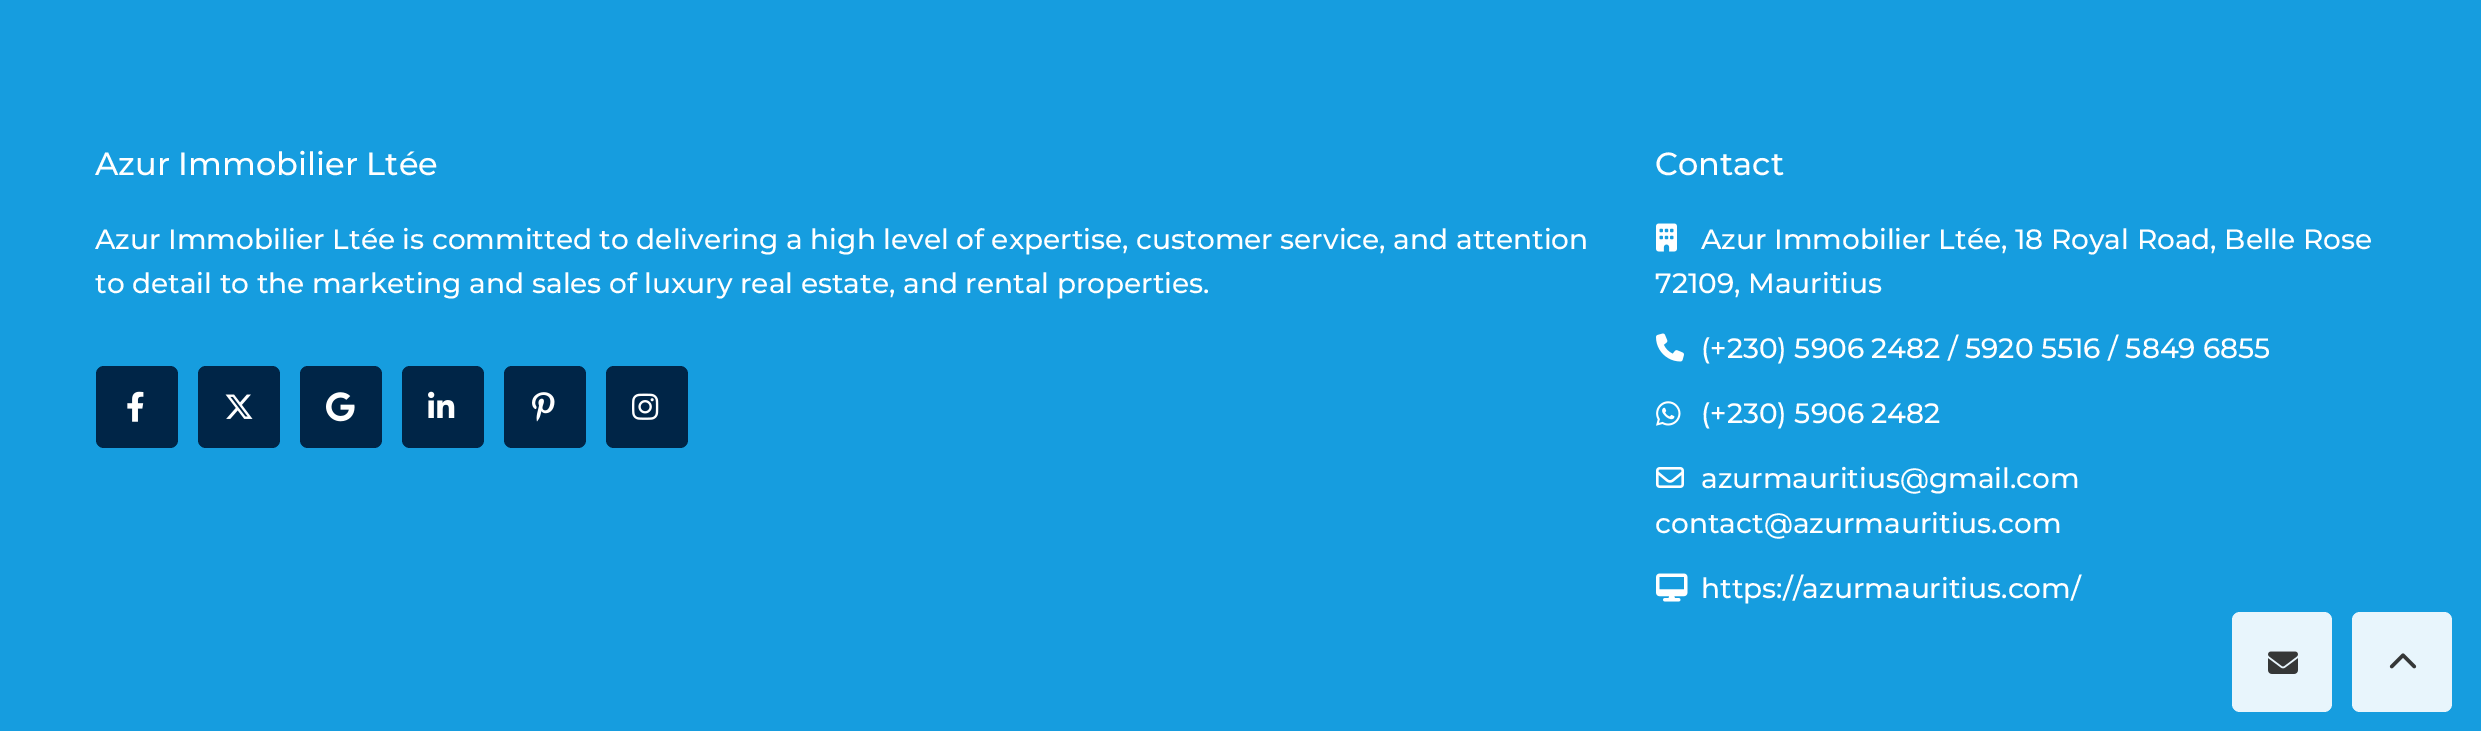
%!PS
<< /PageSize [2481 731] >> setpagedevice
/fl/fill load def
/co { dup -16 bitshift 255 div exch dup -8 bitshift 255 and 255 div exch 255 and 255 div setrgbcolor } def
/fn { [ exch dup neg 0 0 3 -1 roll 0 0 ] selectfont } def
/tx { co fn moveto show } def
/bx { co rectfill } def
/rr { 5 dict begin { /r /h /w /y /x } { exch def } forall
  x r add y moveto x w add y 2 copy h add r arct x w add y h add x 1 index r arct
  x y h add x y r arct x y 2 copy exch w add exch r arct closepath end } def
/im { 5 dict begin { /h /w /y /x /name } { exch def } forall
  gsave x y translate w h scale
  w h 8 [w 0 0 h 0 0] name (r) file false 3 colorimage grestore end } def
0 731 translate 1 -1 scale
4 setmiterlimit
0 0 2481 731 16#169DDF bx
16#002547 co
96 366 82 82 8 rr fl
(media/1.raw) 127 391 17 31 im
198 366 82 82 8 rr fl
(media/2.raw) 225 394 28 25 im
300 366 82 82 8 rr fl
(media/3.raw) 326 392 29 30 im
402 366 82 82 8 rr fl
(media/4.raw) 428 391 27 27 im
504 366 82 82 8 rr fl
(media/5.raw) 532 392 23 30 im
606 366 82 82 8 rr fl
(media/6.raw) 632 393 27 27 im
(media/7.raw) 1656 223 21 29 im
(media/8.raw) 1656 333 28 29 im
(media/9.raw) 1656 401 25 25 im
(media/10.raw) 1656 467 28 21 im
(media/11.raw) 1656 573 32 29 im
16#E8F5FC co
2232 612 100 100 8 rr fl
(media/12.raw) 2268 651 30 23 im
2352 612 100 100 8 rr fl
(media/13.raw) 2389 653 28 16 im
(Azur Immobilier Ltée) 95 175 /Montserrat-Medium 32 16#FFFFFF tx
(Azur Immobilier Ltée is committed to delivering a high level of expertise, customer service, and attention) 95 249 /Montserrat-Medium 28 16#FFFFFF tx
(to detail to the marketing and sales of luxury real estate, and rental properties.) 95 293 /Montserrat-Medium 28 16#FFFFFF tx
(Contact) 1655 175 /Montserrat-Medium 32 16#FFFFFF tx
(Azur Immobilier Ltée, 18 Royal Road, Belle Rose) 1701 249 /Montserrat-Medium 28 16#FFFFFF tx
(72109, Mauritius) 1655 293 /Montserrat-Medium 28 16#FFFFFF tx
(\(+230\) 5906 2482 / 5920 5516 / 5849 6855) 1701 358 /Montserrat-Medium 28 16#FFFFFF tx
(\(+230\) 5906 2482) 1701 423 /Montserrat-Medium 28 16#FFFFFF tx
(azurmauritius@gmail.com) 1701 488 /Montserrat-Medium 28 16#FFFFFF tx
(contact@azurmauritius.com) 1655 533 /Montserrat-Medium 28 16#FFFFFF tx
(https://azurmauritius.com/) 1701 598 /Montserrat-Medium 28 16#FFFFFF tx
showpage
